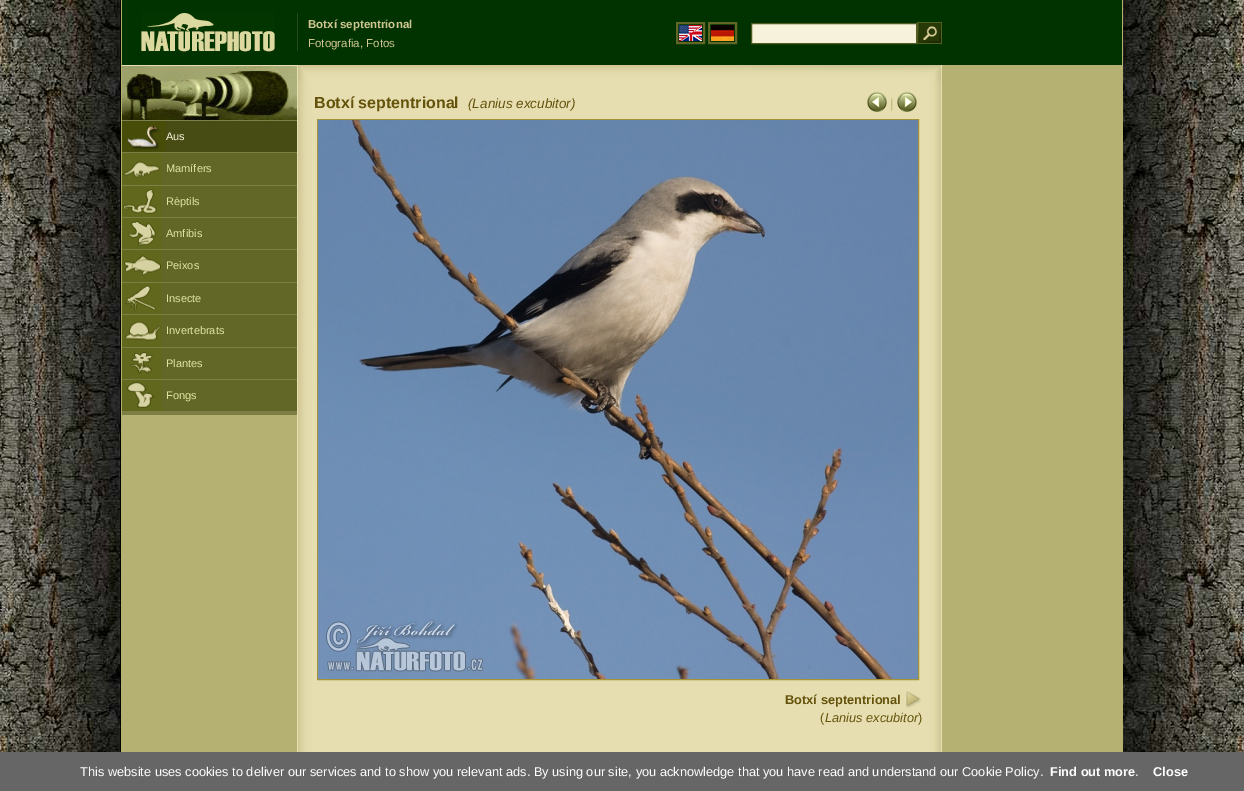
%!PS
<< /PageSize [1244 791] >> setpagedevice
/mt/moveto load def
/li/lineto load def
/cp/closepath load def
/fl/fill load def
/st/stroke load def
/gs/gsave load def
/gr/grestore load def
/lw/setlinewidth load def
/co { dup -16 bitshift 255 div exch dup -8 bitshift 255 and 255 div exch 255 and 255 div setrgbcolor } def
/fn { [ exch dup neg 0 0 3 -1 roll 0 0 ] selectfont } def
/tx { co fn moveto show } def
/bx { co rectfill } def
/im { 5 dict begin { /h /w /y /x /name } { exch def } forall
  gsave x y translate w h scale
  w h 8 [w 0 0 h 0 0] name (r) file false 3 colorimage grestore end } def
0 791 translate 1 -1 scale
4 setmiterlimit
0 0 1244 791 16#FFFFFF bx
(media/1.raw) 0 0 1244 752 im
(media/2.raw) 122 415 175 337 im
1122 0 1 752 16#B5B06C bx
121 0 1 752 16#B5B06C bx
122 0 1000 65 16#013300 bx
122 65 175 1 16#E6DEB0 bx
(media/3.raw) 141 13 134 39 im
297 13 1 38 16#234C18 bx
16#626727 co
2 lw
677 23 27 20 rectstroke
709 23 27 20 rectstroke
16#F7F2DC co
751.5 23.5 mt 916.5 23.5 li 916.5 43.5 li 751.5 43.5 li cp gs fl gr
16#525B22 co
1 lw
st
(media/4.raw) 917 22 25 22 im
(media/5.raw) 679 25 23 16 im
(media/6.raw) 711 25 23 16 im
(media/7.raw) 122 66 175 55 im
122 411 175 4 16#7B7F44 bx
122 152 175 1 16#7B7F44 bx
122 121 175 31 16#474C14 bx
(media/8.raw) 122 121 44 31 im
122 185 175 1 16#7B7F44 bx
122 153 175 32 16#626727 bx
(media/9.raw) 122 153 40 32 im
122 217 175 1 16#7B7F44 bx
122 186 175 31 16#626727 bx
(media/10.raw) 122 186 40 31 im
122 249 175 1 16#7B7F44 bx
122 218 175 31 16#626727 bx
(media/11.raw) 122 218 40 31 im
122 282 175 1 16#7B7F44 bx
122 250 175 32 16#626727 bx
(media/12.raw) 122 250 40 32 im
122 314 175 1 16#7B7F44 bx
122 283 175 31 16#626727 bx
(media/13.raw) 122 283 40 31 im
122 347 175 1 16#7B7F44 bx
122 315 175 32 16#626727 bx
(media/14.raw) 122 315 40 32 im
122 379 175 1 16#7B7F44 bx
122 348 175 31 16#626727 bx
(media/15.raw) 122 348 40 31 im
122 380 175 31 16#626727 bx
(media/16.raw) 122 380 40 31 im
297 65 1 687 16#E6DEB0 bx
(media/17.raw) 298 65 824 687 im
(media/18.raw) 298 65 643 16 im
(media/19.raw) 867 92 20 20 im
(media/20.raw) 897 92 20 20 im
16#A49437 co
317.5 119.5 601 560 rectstroke
(media/21.raw) 318 120 600 559 im
(media/22.raw) 906 691 15 17 im
0 752 1244 39 16#666666 bx
(Botxí septentrional) 308 28 /LiberationSans-Bold 11.5 16#D0C691 tx
(Fotografia, Fotos) 308 47 /LiberationSans-Regular 11.5 16#D0C691 tx
(Aus) 166 140 /LiberationSans-Regular 11 16#FEF9DF tx
(Mamífers) 166 172 /LiberationSans-Regular 11 16#E0E2A0 tx
(Rèptils) 166 205 /LiberationSans-Regular 11 16#E0E2A0 tx
(Amfibis) 166 237 /LiberationSans-Regular 11 16#E0E2A0 tx
(Peixos) 166 269 /LiberationSans-Regular 11 16#E0E2A0 tx
(Insecte) 166 302 /LiberationSans-Regular 11 16#E0E2A0 tx
(Invertebrats) 166 334 /LiberationSans-Regular 11 16#E0E2A0 tx
(Plantes) 166 367 /LiberationSans-Regular 11 16#E0E2A0 tx
(Fongs) 166 399 /LiberationSans-Regular 11 16#E0E2A0 tx
(Botxí septentrional) 314 108 /LiberationSans-Bold 16 16#65530B tx
(\(Lanius excubitor\)) 468 108 /LiberationSans-Italic 13.5 16#65530B tx
(|) 890 108 /LiberationSans-Regular 12.8 16#BFB072 tx
(Botxí septentrional) 785 704 /LiberationSans-Bold 12.8 16#65530B tx
(\() 820 722 /LiberationSans-Regular 12.8 16#65530B tx
(Lanius excubitor) 825 722 /LiberationSans-Italic 12.8 16#65530B tx
(\)) 918 722 /LiberationSans-Regular 12.8 16#65530B tx
(This website uses cookies to deliver our services and to show you relevant ads. By using our site, you acknowledge that you have read and understand our Cookie Policy.) 80 776 /LiberationSans-Regular 12.8 16#FFFFFF tx
(Find out more) 1050 776 /LiberationSans-Bold 12.8 16#FFFFFF tx
(.) 1135 776 /LiberationSans-Regular 12.8 16#FFFFFF tx
(Close) 1153 776 /LiberationSans-Bold 12.8 16#FFFFFF tx
showpage
